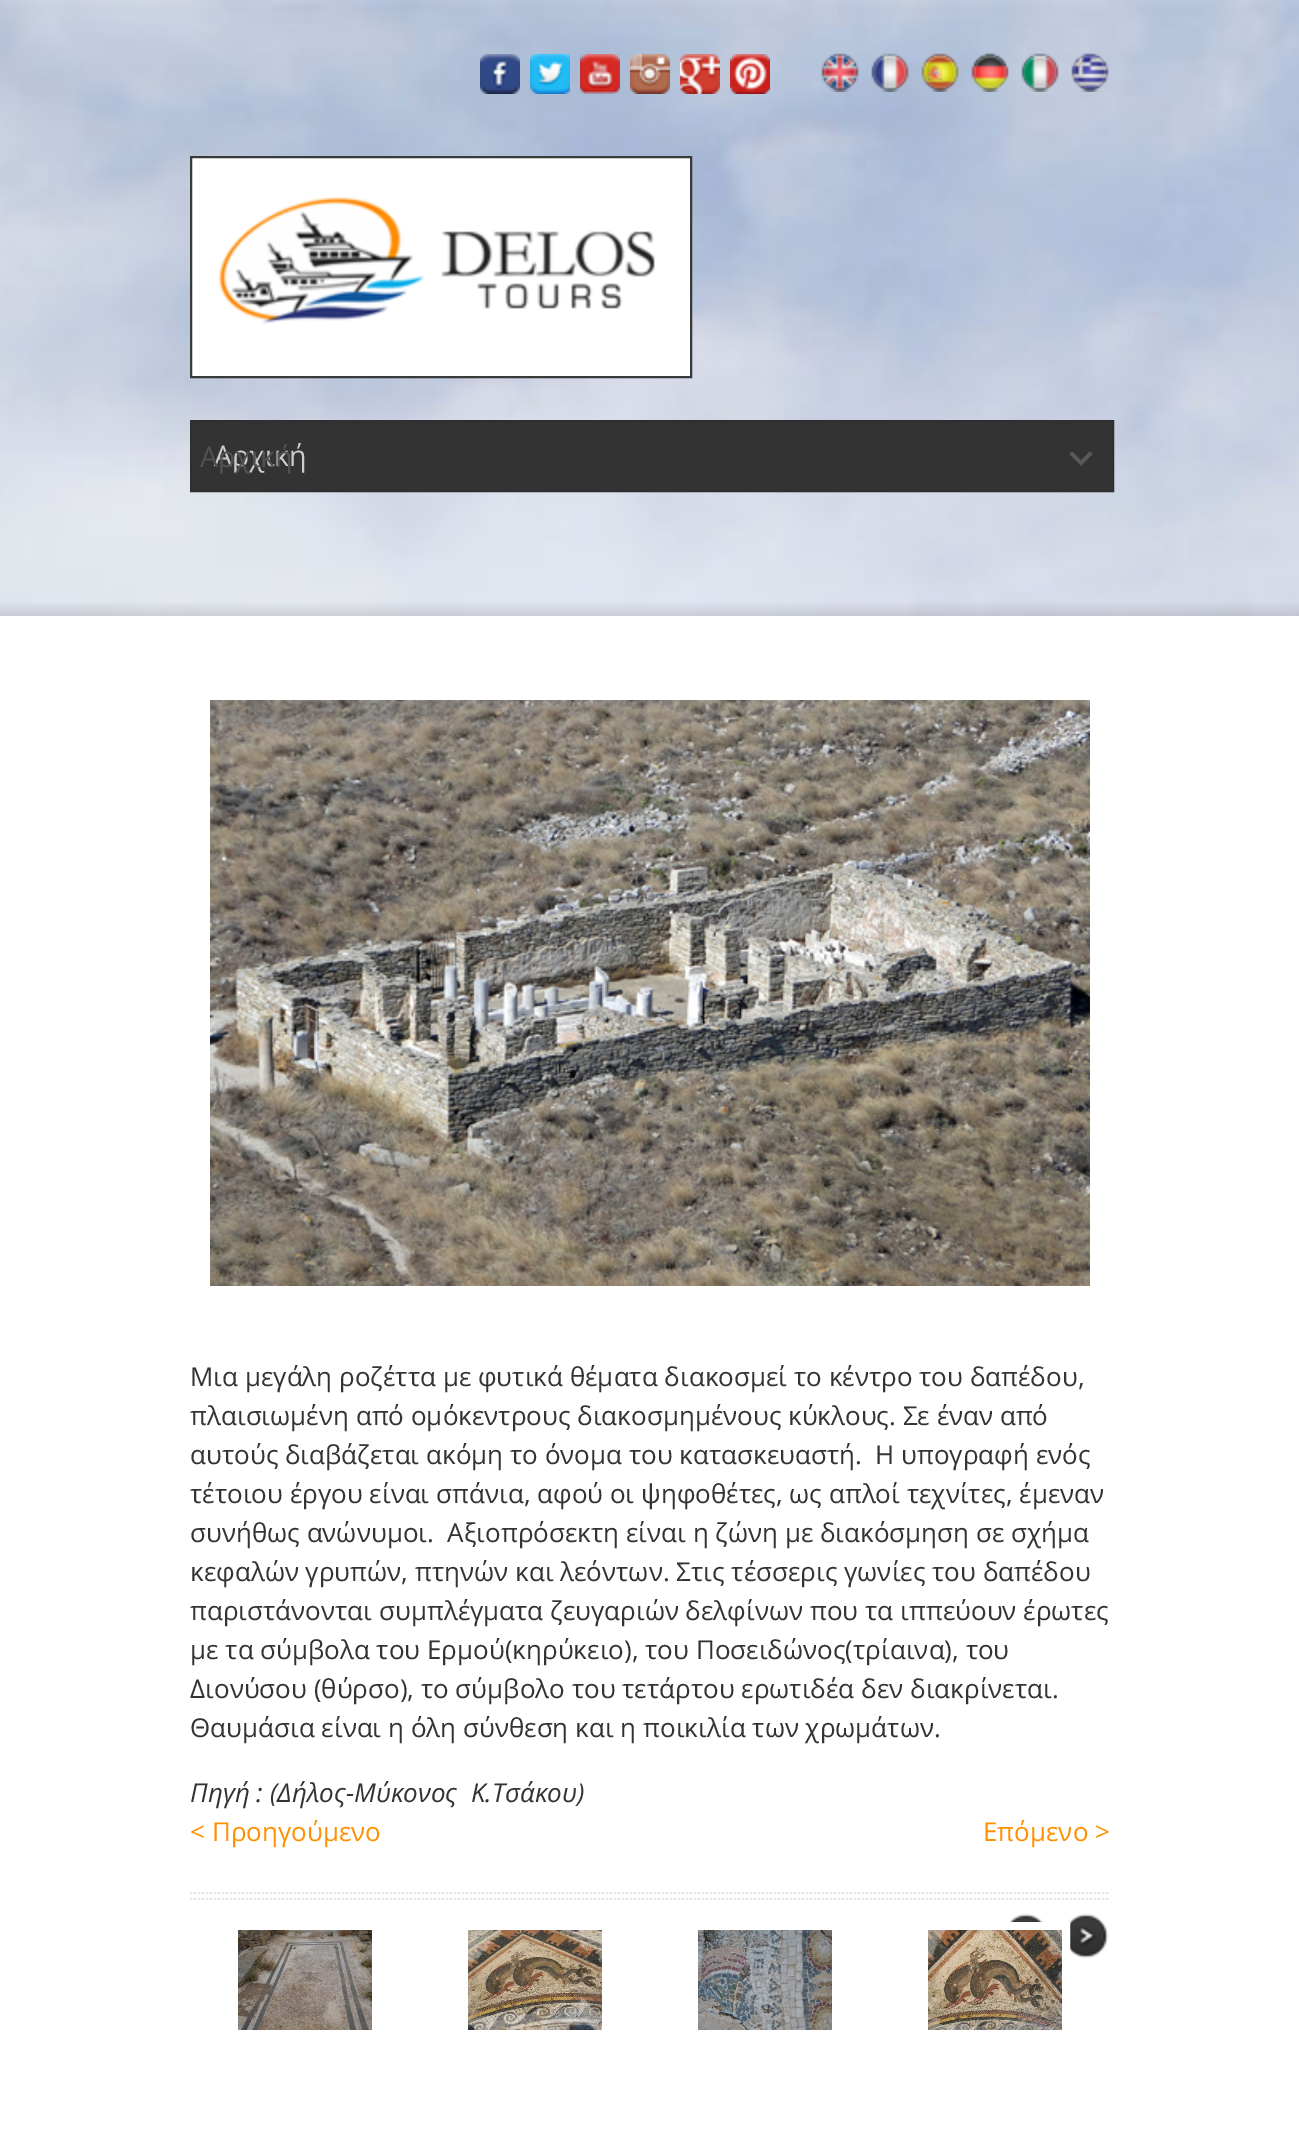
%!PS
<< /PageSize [1299 2144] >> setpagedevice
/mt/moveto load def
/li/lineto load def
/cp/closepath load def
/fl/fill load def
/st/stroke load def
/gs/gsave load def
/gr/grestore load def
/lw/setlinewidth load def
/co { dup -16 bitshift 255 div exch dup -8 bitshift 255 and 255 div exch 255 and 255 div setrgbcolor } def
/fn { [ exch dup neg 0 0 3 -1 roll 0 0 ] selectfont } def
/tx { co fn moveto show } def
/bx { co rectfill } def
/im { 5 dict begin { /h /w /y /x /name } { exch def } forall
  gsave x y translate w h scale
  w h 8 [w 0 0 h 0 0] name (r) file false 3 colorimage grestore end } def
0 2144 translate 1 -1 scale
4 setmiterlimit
0 0 1299 2144 16#FFFFFF bx
(media/1.raw) 0 0 1299 616 im
(media/2.raw) 480 54 40 40 im
(media/3.raw) 530 54 40 40 im
(media/4.raw) 580 54 40 40 im
(media/5.raw) 630 54 40 40 im
(media/6.raw) 680 54 40 40 im
(media/7.raw) 730 54 40 40 im
(media/8.raw) 821 53 38 39 im
(media/9.raw) 871 53 38 39 im
(media/10.raw) 921 53 38 39 im
(media/11.raw) 971 53 38 39 im
(media/12.raw) 1021 53 38 39 im
(media/13.raw) 1071 53 38 39 im
191 157 mt 691 157 li 691 377 li 191 377 li cp gs fl gr
16#393A3A co
2 lw
st
(media/14.raw) 218 196 437 129 im
192 422 920 68 16#333333 bx
(media/15.raw) 1069 451 24 16 im
16#2F2F2F co
191 421 922 70 rectstroke
(media/16.raw) 0 603 1299 13 im
(media/17.raw) 210 700 880 586 im
(media/18.raw) 190 1892 920 8 im
(media/19.raw) 1005 1913 42 9 im
(media/20.raw) 1065 1913 44 46 im
(media/21.raw) 238 1930 134 100 im
(media/22.raw) 468 1930 134 100 im
(media/23.raw) 698 1930 134 100 im
16#FFFFFF co
8 lw
924 1926 142 108 rectstroke
(media/24.raw) 928 1930 134 100 im
(Αρχική) 214 466 /OpenSans-Regular 28.5 16#CCCCCC tx
(Αρχική) 200 467 /OpenSans-Regular 28.5 16#515151 tx
(Μια μεγάλη ροζέττα με φυτικά θέματα διακοσμεί το κέντρο του δαπέδου,) 190 1386 /OpenSans-Regular 26 16#333333 tx
(πλαισιωμένη από ομόκεντρους διακοσμημένους κύκλους. Σε έναν από) 190 1425 /OpenSans-Regular 26 16#333333 tx
(αυτούς διαβάζεται ακόμη το όνομα του κατασκευαστή.  Η υπογραφή ενός) 190 1464 /OpenSans-Regular 26 16#333333 tx
(τέτοιου έργου είναι σπάνια, αφού οι ψηφοθέτες, ως απλοί τεχνίτες, έμεναν) 190 1503 /OpenSans-Regular 26 16#333333 tx
(συνήθως ανώνυμοι.  Αξιοπρόσεκτη είναι η ζώνη με διακόσμηση σε σχήμα) 190 1542 /OpenSans-Regular 26 16#333333 tx
(κεφαλών γρυπών, πτηνών και λεόντων. Στις τέσσερις γωνίες του δαπέδου) 190 1581 /OpenSans-Regular 26 16#333333 tx
(παριστάνονται συμπλέγματα ζευγαριών δελφίνων που τα ιππεύουν έρωτες) 190 1620 /OpenSans-Regular 26 16#333333 tx
(με τα σύμβολα του Ερμού\(κηρύκειο\), του Ποσειδώνος\(τρίαινα\), του) 190 1659 /OpenSans-Regular 26 16#333333 tx
(Διονύσου \(θύρσο\), το σύμβολο του τετάρτου ερωτιδέα δεν διακρίνεται.) 190 1698 /OpenSans-Regular 26 16#333333 tx
(Θαυμάσια είναι η όλη σύνθεση και η ποικιλία των χρωμάτων.) 190 1737 /OpenSans-Regular 26 16#333333 tx
(Πηγή : \(Δήλος-Μύκονος  Κ.Τσάκου\)) 190 1802 /OpenSans-Italic 26 16#333333 tx
(< Προηγούμενο) 190 1841 /OpenSans-Regular 26 16#FF9000 tx
(Επόμενο >) 983 1841 /OpenSans-Regular 26 16#FF9000 tx
showpage
